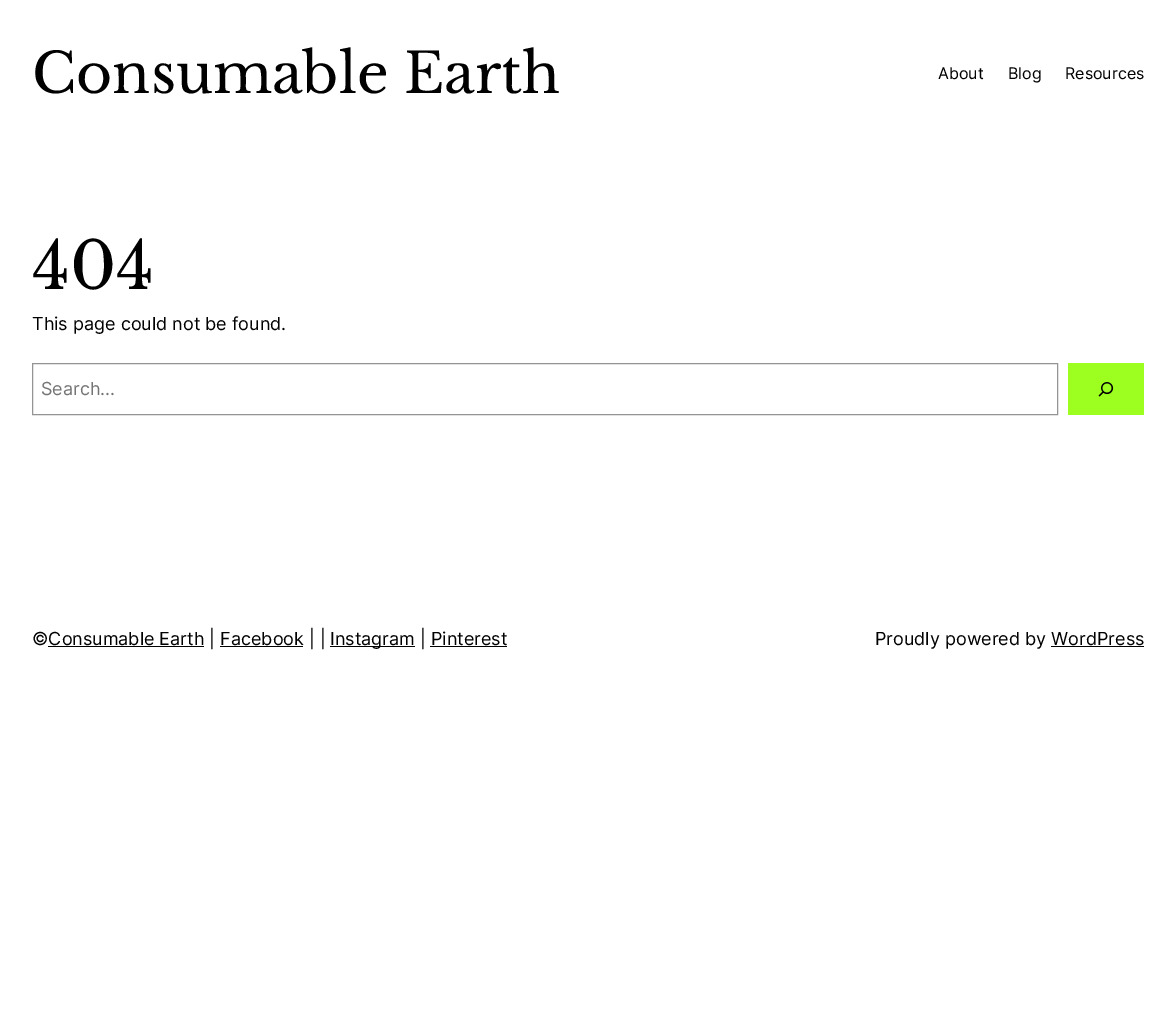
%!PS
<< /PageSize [1176 1027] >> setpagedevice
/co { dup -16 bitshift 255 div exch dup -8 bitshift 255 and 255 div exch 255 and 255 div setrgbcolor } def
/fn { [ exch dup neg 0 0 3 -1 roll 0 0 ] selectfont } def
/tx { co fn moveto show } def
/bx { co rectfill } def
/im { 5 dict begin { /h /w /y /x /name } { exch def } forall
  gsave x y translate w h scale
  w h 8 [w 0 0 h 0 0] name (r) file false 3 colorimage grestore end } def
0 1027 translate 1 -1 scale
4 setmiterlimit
0 0 1176 1027 16#FFFFFF bx
16#949494 co
32.5 363.5 1025 51 rectstroke
1068 363 76 52 16#9DFF20 bx
(media/1.raw) 1098 382 16 15 im
330 646 85 1 16#000000 bx
48 646 156 1 16#000000 bx
220 646 83 1 16#000000 bx
430 646 77 1 16#000000 bx
1051 646 93 1 16#000000 bx
(Consumable Earth) 32 93 /LibreBaskerville-Regular 55.25 16#000000 tx
(About) 938 79 /Inter-Regular 16 16#000000 tx
(Blog) 1008 79 /Inter-Regular 16 16#000000 tx
(Resources) 1065 79 /Inter-Regular 16 16#000000 tx
(404) 32 289 /LibreBaskerville-Regular 65 16#000000 tx
(This page could not be found.) 32 330 /Inter-Regular 18 16#000000 tx
(Search...) 41 395 /Inter-Regular 18 16#757575 tx
(©Consumable Earth | Facebook | |) 32 645 /Inter-Regular 18 16#000000 tx
(Instagram | Pinterest) 330 645 /Inter-Regular 18 16#000000 tx
(Proudly powered by WordPress) 875 645 /Inter-Regular 18 16#000000 tx
showpage
